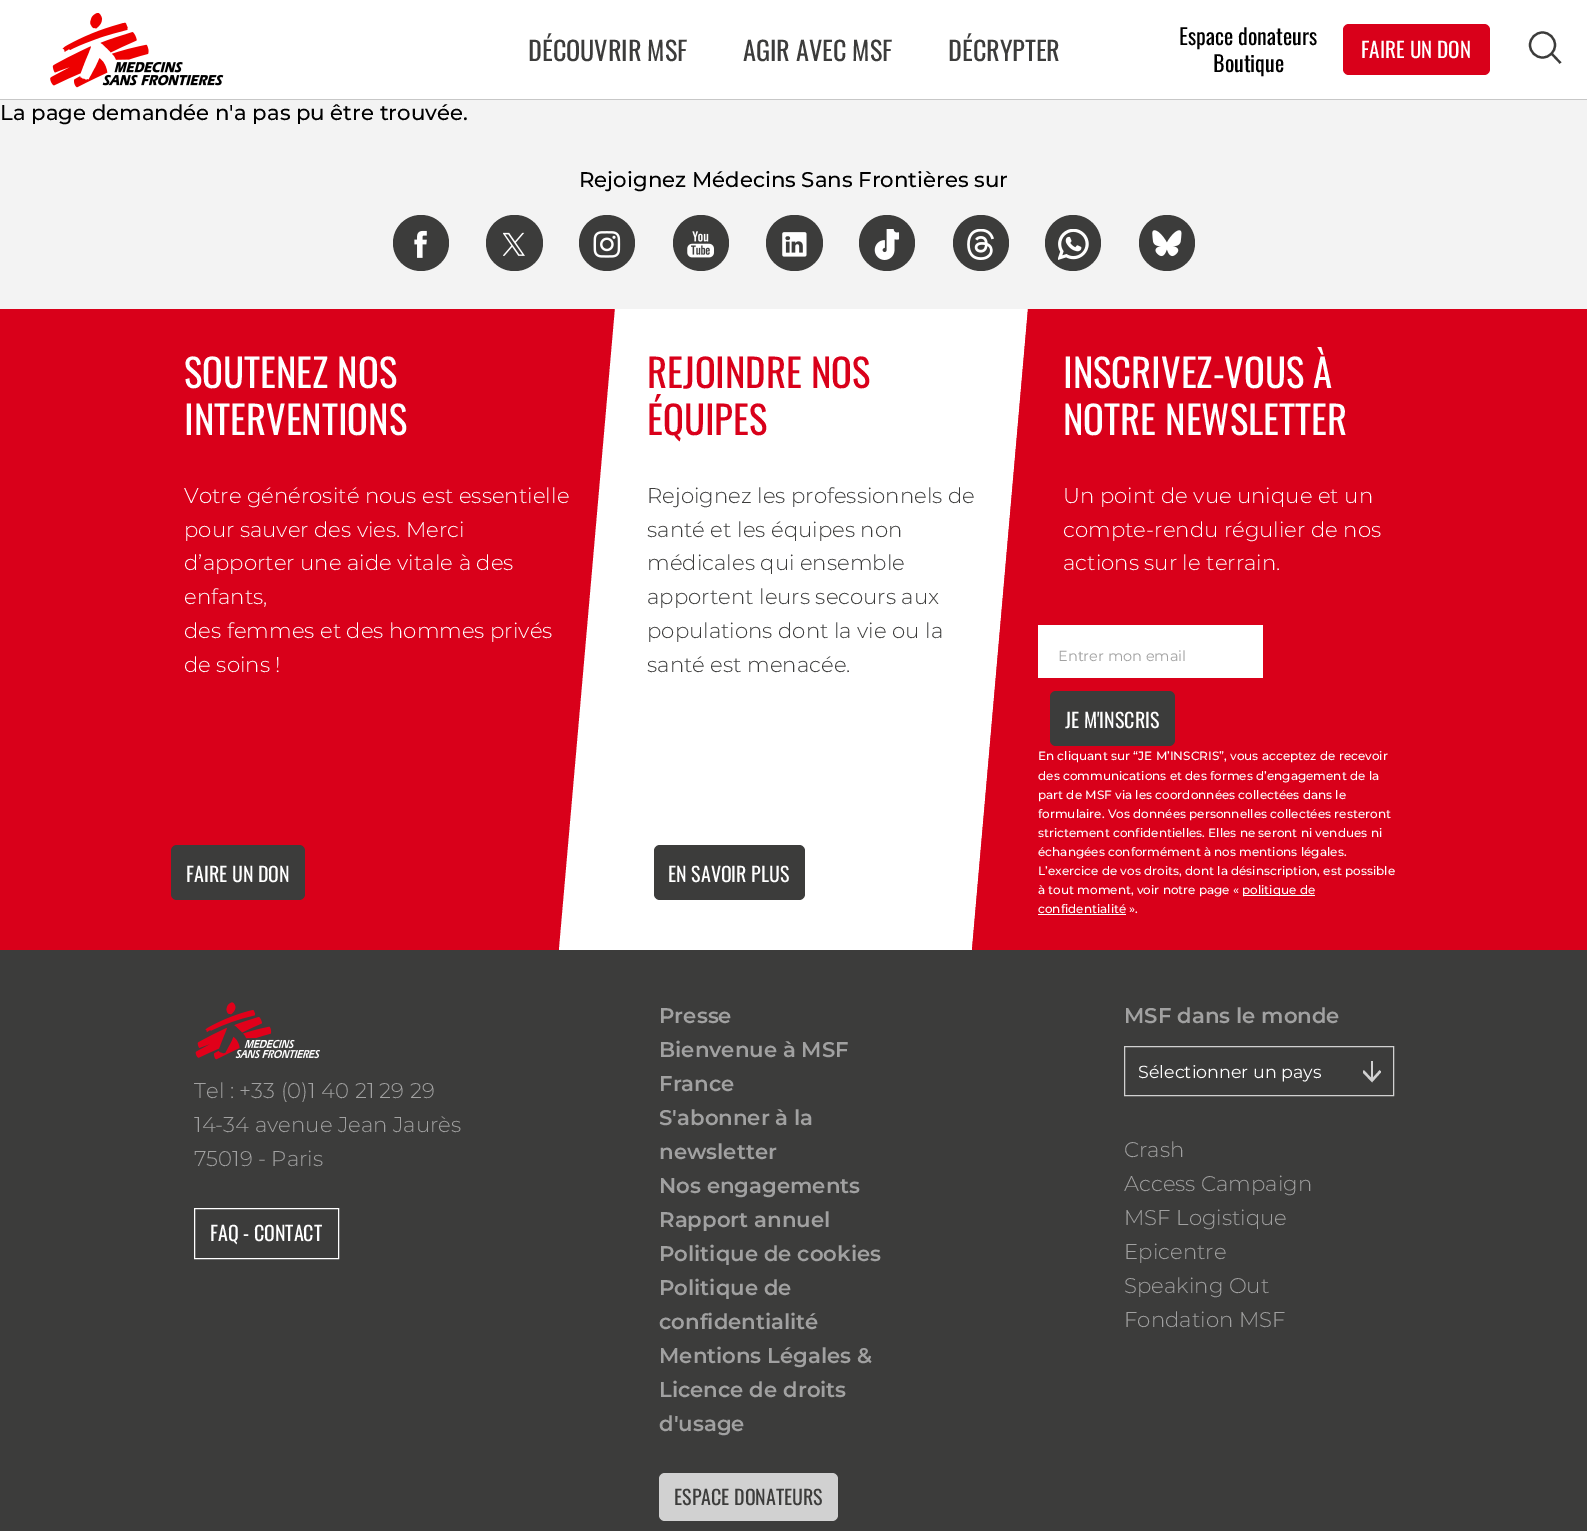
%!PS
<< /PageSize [1587 1531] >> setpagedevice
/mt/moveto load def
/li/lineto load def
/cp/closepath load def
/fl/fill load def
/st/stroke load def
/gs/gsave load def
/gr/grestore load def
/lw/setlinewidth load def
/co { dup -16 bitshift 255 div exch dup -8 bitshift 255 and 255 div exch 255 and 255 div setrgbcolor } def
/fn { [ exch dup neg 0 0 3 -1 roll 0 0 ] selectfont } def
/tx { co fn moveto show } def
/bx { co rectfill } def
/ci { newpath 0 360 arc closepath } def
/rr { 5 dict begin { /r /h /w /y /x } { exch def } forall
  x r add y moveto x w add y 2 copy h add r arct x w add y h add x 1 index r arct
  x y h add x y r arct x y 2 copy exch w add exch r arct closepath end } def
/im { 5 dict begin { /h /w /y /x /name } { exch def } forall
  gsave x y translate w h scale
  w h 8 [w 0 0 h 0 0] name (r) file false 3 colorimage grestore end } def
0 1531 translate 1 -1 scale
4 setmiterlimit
0 0 1587 1531 16#F3F3F3 bx
0 0 1587 99 16#FFFFFF bx
0 99 1587 1 16#C7C7C7 bx
(media/1.raw) 50 13 174 75 im
16#D9001A co
1343 24 147 51 6 rr fl
16#3C3C3B co
2.2 lw
1542.5 45 12.5 ci st
1551.5 53.5 mt 1560.5 63 li st
421 243 28 ci fl
(media/2.raw) 414 230 13 28 im
486 215 57 56 28 rr fl
(media/3.raw) 503 232 22 24 im
607 243 28 ci fl
(media/4.raw) 593 231 28 27 im
701 243 28 ci fl
(media/5.raw) 687 231 27 27 im
766 215 57 56 28 rr fl
(media/6.raw) 782 232 25 25 im
887 243 28 ci fl
(media/7.raw) 874 229 26 31 im
981 243 28 ci fl
(media/8.raw) 967 229 27 31 im
1073 243 28 ci fl
(media/9.raw) 1058 229 31 31 im
1167 243 28 ci fl
(media/10.raw) 1152 230 30 27 im
0 309 1587 641 16#D9001A bx
16#3C3C3B co
171 845 134 55 6 rr fl
16#FFFFFF co
615 309 mt 1028 309 li 972 950 li 559 950 li cp fl
16#3C3C3B co
654 845 151 55 6 rr fl
0 950 1587 581 16#3C3C3B bx
(media/11.raw) 195 1002 125 58 im
16#FFFFFF co
1 lw
194.5 1208.5 144 50 rectstroke
16#D1D1D1 co
659 1473 179 48 6 rr fl
1124.5 1046.5 269 49 rectstroke
gs
1363 1061 18 22 rectclip
2.4 lw
1363 1071 mt 1372 1080.5 li 1380.5 1071 li st
gr
1371 1061 2 20 16#D1D1D1 bx
(DÉCOUVRIR MSF) 528 61 /Oswald-Regular 26.25 16#3C3C3B tx
(AGIR AVEC MSF) 743 61 /Oswald-Regular 26.25 16#3C3C3B tx
(DÉCRYPTER) 948 61 /Oswald-Regular 26.25 16#3C3C3B tx
(Espace donateurs) 1179 45 /Oswald-Regular 22 16#000000 tx
(Boutique) 1213 72 /Oswald-Regular 22 16#000000 tx
(FAIRE UN DON) 1361 58 /Oswald-Regular 21.25 16#FFFFFF tx
(La page demandée n'a pas pu être trouvée.) 0 120 /Montserrat-Thin 21.25 16#000000 tx
(Rejoignez Médecins Sans Frontières sur) 579 187 /Montserrat-Thin 21.25 16#000000 tx
(SOUTENEZ NOS) 184 388 /Oswald-Regular 38.75 16#FFFFFF tx
(INTERVENTIONS) 184 435 /Oswald-Regular 38.75 16#FFFFFF tx
(Votre générosité nous est essentielle) 184 503 /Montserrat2-Thin 21.25 16#FFFFFF tx
(pour sauver des vies. Merci) 184 537 /Montserrat2-Thin 21.25 16#FFFFFF tx
(d’apporter une aide vitale à des) 184 570 /Montserrat2-Thin 21.25 16#FFFFFF tx
(enfants,) 184 604 /Montserrat2-Thin 21.25 16#FFFFFF tx
(des femmes et des hommes privés) 184 638 /Montserrat2-Thin 21.25 16#FFFFFF tx
(de soins !) 184 672 /Montserrat2-Thin 21.25 16#FFFFFF tx
(FAIRE UN DON) 186 882 /Oswald-Regular 20 16#FFFFFF tx
(REJOINDRE NOS) 647 388 /Oswald-Regular 38.75 16#D9001A tx
(ÉQUIPES) 647 435 /Oswald-Regular 38.75 16#D9001A tx
(Rejoignez les professionnels de) 647 503 /Montserrat2-Thin 21.25 16#3C3C3B tx
(santé et les équipes non) 647 537 /Montserrat2-Thin 21.25 16#3C3C3B tx
(médicales qui ensemble) 647 570 /Montserrat2-Thin 21.25 16#3C3C3B tx
(apportent leurs secours aux) 647 604 /Montserrat2-Thin 21.25 16#3C3C3B tx
(populations dont la vie ou la) 647 638 /Montserrat2-Thin 21.25 16#3C3C3B tx
(santé est menacée.) 647 672 /Montserrat2-Thin 21.25 16#3C3C3B tx
(EN SAVOIR PLUS) 668 882 /Oswald-Regular 20 16#FFFFFF tx
16#D9001A co
1028 309 mt 1442 309 li 1386 950 li 972 950 li cp fl
(INSCRIVEZ-VOUS À) 1063 388 /Oswald-Regular 38.75 16#FFFFFF tx
(NOTRE NEWSLETTER) 1063 435 /Oswald-Regular 38.75 16#FFFFFF tx
(Un point de vue unique et un) 1063 503 /Montserrat2-Thin 21.25 16#FFFFFF tx
(compte-rendu régulier de nos) 1063 537 /Montserrat2-Thin 21.25 16#FFFFFF tx
(actions sur le terrain.) 1063 570 /Montserrat2-Thin 21.25 16#FFFFFF tx
1038 625 225 53 16#FFFFFF bx
(Entrer mon email) 1058 661 /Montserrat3-Thin 14.5 16#A1A1A1 tx
16#3C3C3B co
1050 691 125 55 6 rr fl
(JE M'INSCRIS) 1065 728 /Oswald-Regular 20 16#FFFFFF tx
(En cliquant sur “JE M’INSCRIS”, vous acceptez de recevoir) 1038 760 /Montserrat-Thin 12 16#FFFFFF tx
(des communications et des formes d’engagement de la) 1038 780 /Montserrat-Thin 12 16#FFFFFF tx
(part de MSF via les coordonnées collectées dans le) 1038 799 /Montserrat-Thin 12 16#FFFFFF tx
(formulaire. Vos données personnelles collectées resteront) 1038 818 /Montserrat-Thin 12 16#FFFFFF tx
(strictement confidentielles. Elles ne seront ni vendues ni) 1038 837 /Montserrat-Thin 12 16#FFFFFF tx
(échangées conformément à nos mentions légales.) 1038 856 /Montserrat-Thin 12 16#FFFFFF tx
(L’exercice de vos droits, dont la désinscription, est possible) 1038 875 /Montserrat-Thin 12 16#FFFFFF tx
(à tout moment, voir notre page «) 1038 894 /Montserrat-Thin 12 16#FFFFFF tx
1243 895 72 1 16#FFFFFF bx
(politique de) 1242 894 /Montserrat-Thin 12 16#FFFFFF tx
(confidentialité) 1038 913 /Montserrat-Thin 12 16#FFFFFF tx
1038 914 88 1 16#FFFFFF bx
(».) 1129 913 /Montserrat-Thin 12 16#FFFFFF tx
(Tel : +33 \(0\)1 40 21 29 29) 194 1098 /Montserrat2-Thin 21.25 16#A1A1A1 tx
(14-34 avenue Jean Jaurès) 194 1132 /Montserrat2-Thin 21.25 16#A1A1A1 tx
(75019 - Paris) 194 1166 /Montserrat2-Thin 21.25 16#A1A1A1 tx
(FAQ - CONTACT) 210 1241 /Oswald-Regular 20 16#FFFFFF tx
(Presse) 659 1023 /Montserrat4-Thin 21.25 16#A1A1A1 tx
(Bienvenue à MSF) 659 1057 /Montserrat4-Thin 21.25 16#A1A1A1 tx
(France) 659 1091 /Montserrat4-Thin 21.25 16#A1A1A1 tx
(S'abonner à la) 659 1125 /Montserrat4-Thin 21.25 16#A1A1A1 tx
(newsletter) 659 1159 /Montserrat4-Thin 21.25 16#A1A1A1 tx
(Nos engagements) 659 1193 /Montserrat4-Thin 21.25 16#A1A1A1 tx
(Rapport annuel) 659 1227 /Montserrat4-Thin 21.25 16#A1A1A1 tx
(Politique de cookies) 659 1261 /Montserrat4-Thin 21.25 16#A1A1A1 tx
(Politique de) 659 1295 /Montserrat4-Thin 21.25 16#A1A1A1 tx
(confidentialité) 659 1329 /Montserrat4-Thin 21.25 16#A1A1A1 tx
(Mentions Légales &) 659 1363 /Montserrat4-Thin 21.25 16#A1A1A1 tx
(Licence de droits) 659 1397 /Montserrat4-Thin 21.25 16#A1A1A1 tx
(d'usage) 659 1431 /Montserrat4-Thin 21.25 16#A1A1A1 tx
(ESPACE DONATEURS) 674 1505 /Oswald-Regular 20 16#3C3C3B tx
(MSF dans le monde) 1124 1023 /Montserrat4-Thin 21.25 16#A1A1A1 tx
(Sélectionner un pays) 1138 1078 /Montserrat3-Thin 17.5 16#FFFFFF tx
(Crash) 1124 1157 /Montserrat2-Thin 21.25 16#A1A1A1 tx
(Access Campaign) 1124 1191 /Montserrat2-Thin 21.25 16#A1A1A1 tx
(MSF Logistique) 1124 1225 /Montserrat2-Thin 21.25 16#A1A1A1 tx
(Epicentre) 1124 1259 /Montserrat2-Thin 21.25 16#A1A1A1 tx
(Speaking Out) 1124 1293 /Montserrat2-Thin 21.25 16#A1A1A1 tx
(Fondation MSF) 1124 1327 /Montserrat2-Thin 21.25 16#A1A1A1 tx
showpage
